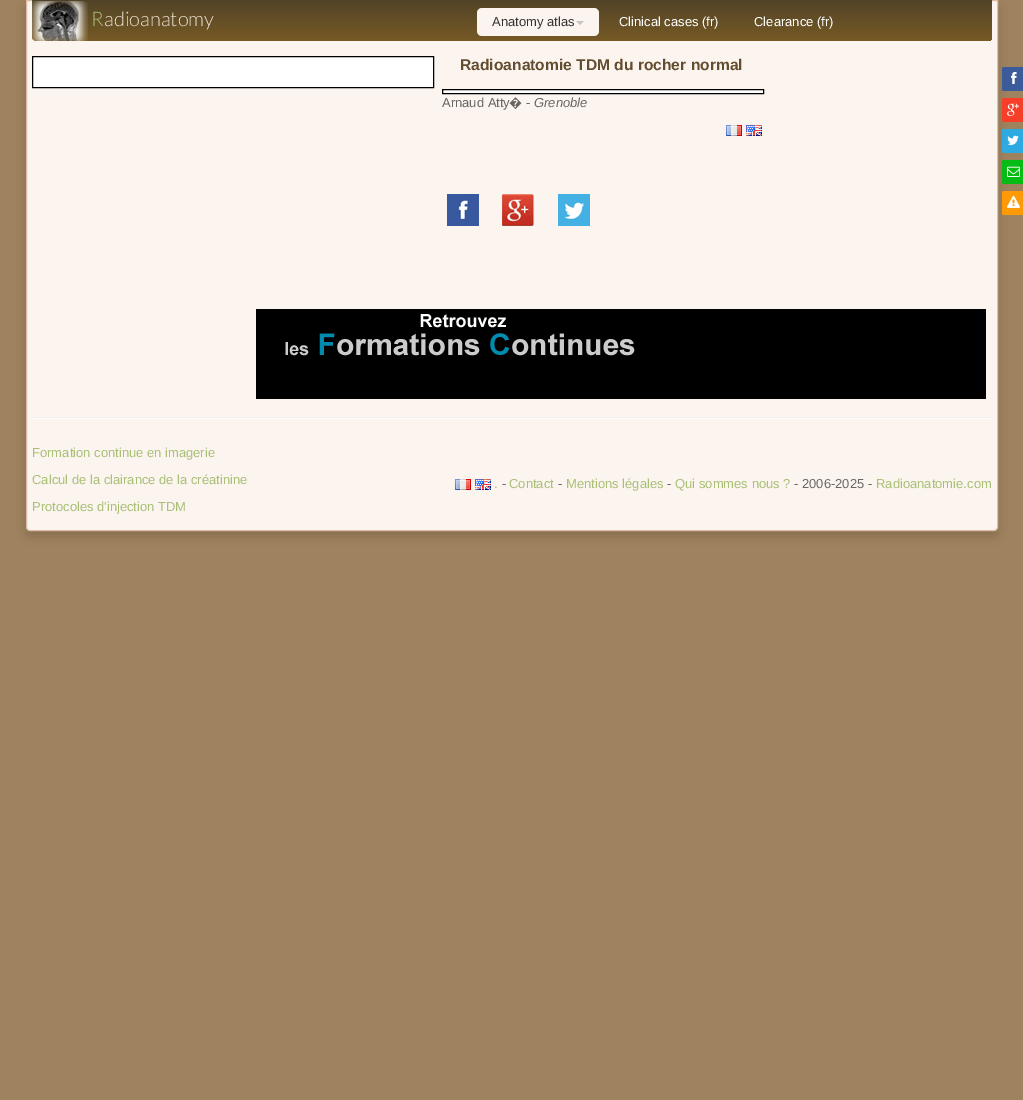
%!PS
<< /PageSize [1023 1100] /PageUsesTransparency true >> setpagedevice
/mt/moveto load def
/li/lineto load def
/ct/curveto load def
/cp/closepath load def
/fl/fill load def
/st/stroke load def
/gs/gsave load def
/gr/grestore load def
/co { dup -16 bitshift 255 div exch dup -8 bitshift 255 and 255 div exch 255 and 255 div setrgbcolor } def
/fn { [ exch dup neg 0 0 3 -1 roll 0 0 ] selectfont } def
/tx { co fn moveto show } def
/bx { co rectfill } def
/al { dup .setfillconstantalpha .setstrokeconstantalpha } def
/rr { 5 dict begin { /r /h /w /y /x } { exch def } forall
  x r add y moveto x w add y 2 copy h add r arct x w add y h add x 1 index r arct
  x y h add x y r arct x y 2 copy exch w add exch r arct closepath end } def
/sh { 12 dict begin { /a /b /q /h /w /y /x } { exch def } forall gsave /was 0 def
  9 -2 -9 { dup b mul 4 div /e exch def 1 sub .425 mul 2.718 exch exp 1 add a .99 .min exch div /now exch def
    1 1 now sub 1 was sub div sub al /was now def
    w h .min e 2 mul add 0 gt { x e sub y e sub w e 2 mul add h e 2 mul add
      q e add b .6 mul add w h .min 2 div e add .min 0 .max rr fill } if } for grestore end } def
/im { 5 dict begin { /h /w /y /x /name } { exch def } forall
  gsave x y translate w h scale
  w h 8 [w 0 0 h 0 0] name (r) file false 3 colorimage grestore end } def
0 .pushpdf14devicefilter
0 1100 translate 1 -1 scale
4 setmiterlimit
0 0 1023 1100 16#9F835E bx
16#000000 co
26 5 972 531 4 5 .17 sh
16#FCF5EF co
26.5 .5 mt 997.5 .5 li 997.5 527 li 997.5 529 996 530.5 994 530.5 ct 30 530.5 li 28 530.5 26.5 529 26.5 527 ct cp gs fl gr
16#DDBBA7 co
st
gs 32 0 mt 992 0 li 992 37 li 992 39 990 41 988 41 ct 36 41 li 34 41 32 39 32 37 ct cp clip newpath
<< /ShadingType 2 /ColorSpace /DeviceRGB /Coords [512 0 512 41] /Extend [true true] /Function << /FunctionType 2 /Domain [0 1] /C0 [.318 .263 .157] /C1 [.467 .353 .145] /N 1 >> >> shfill gr
(media/1.raw) 32 1 56 40 im
16#FCF5EF co
477 8 122 28 5 rr fl
16#CAC5C1 co
576 21 mt 584 21 li 580 25 li cp fl
16#3C5B9B co
1002 67 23 24 2 rr fl
(media/2.raw) 1011 72 6 12 im
16#F63E28 co
1002 98 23 24 2 rr fl
(media/3.raw) 1007 103 13 13 im
16#2DAAE1 co
1002 129 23 24 2 rr fl
(media/4.raw) 1007 135 12 10 im
16#06BC14 co
1002 160 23 24 2 rr fl
(media/5.raw) 1007 166 13 11 im
16#FF9A07 co
1002 191 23 24 2 rr fl
(media/6.raw) 1007 195 13 13 im
16#FFFFFF co
32.5 56.5 mt 433.5 56.5 li 433.5 87.5 li 32.5 87.5 li cp gs fl gr
16#000000 co
st
16#FFFFFF co
442.5 89.5 mt 763.5 89.5 li 763.5 93.5 li 442.5 93.5 li cp gs fl gr
16#000000 co
st
(media/7.raw) 726 125 16 11 im
(media/8.raw) 746 125 16 11 im
(media/9.raw) 447 194 32 32 im
(media/10.raw) 502 194 33 32 im
(media/11.raw) 558 194 32 32 im
(media/12.raw) 256 309 730 90 im
32 417 960 1 16#EEEEEE bx
32 418 960 1 16#FFFFFF bx
(media/7.raw) 455 479 16 11 im
(media/8.raw) 475 479 16 11 im
(R) 91 26 /Lato-Light 20 16#A8BF75 tx
(adioanatomy) 104 26 /Lato-Light 20 16#EADFD1 tx
(Anatomy atlas) 492 26 /LiberationSans-Regular 13 16#333333 tx
(Clinical cases \(fr\)) 619 26 /LiberationSans-Regular 13 16#FFFFFF tx
(Clearance \(fr\)) 754 26 /LiberationSans-Regular 13 16#FFFFFF tx
(Radioanatomie TDM du rocher normal) 460 70 /LiberationSans-Bold 15.6 16#634D30 tx
(Arnaud Atty) 442 107 /LiberationSans-Regular 13 16#676563 tx
(�) 509 107 /NotoSans-Regular 13 16#676563 tx
(-) 526 107 /LiberationSans-Regular 13 16#676563 tx
(Grenoble) 534 107 /LiberationSans-Italic 13 16#676563 tx
(Formation continue en imagerie) 32 457 /LiberationSans-Regular 13 16#A8BF75 tx
(Calcul de la clairance de la créatinine) 32 484 /LiberationSans-Regular 13 16#A8BF75 tx
(Protocoles d'injection TDM) 32 511 /LiberationSans-Regular 13 16#A8BF75 tx
(-) 502 488 /LiberationSans-Regular 13 16#676563 tx
(Contact) 509 488 /LiberationSans-Regular 13 16#A8BF75 tx
(-) 558 488 /LiberationSans-Regular 13 16#676563 tx
(Mentions légales) 566 488 /LiberationSans-Regular 13 16#A8BF75 tx
(-) 667 488 /LiberationSans-Regular 13 16#676563 tx
(Qui sommes nous ?) 675 488 /LiberationSans-Regular 13 16#A8BF75 tx
(- 2006-2025 -) 794 488 /LiberationSans-Regular 13 16#676563 tx
(Radioanatomie.com) 876 488 /LiberationSans-Regular 13 16#A8BF75 tx
(.) 494 488 /LiberationSans-Regular 13 16#A8BF75 tx
.poppdf14devicefilter showpage
